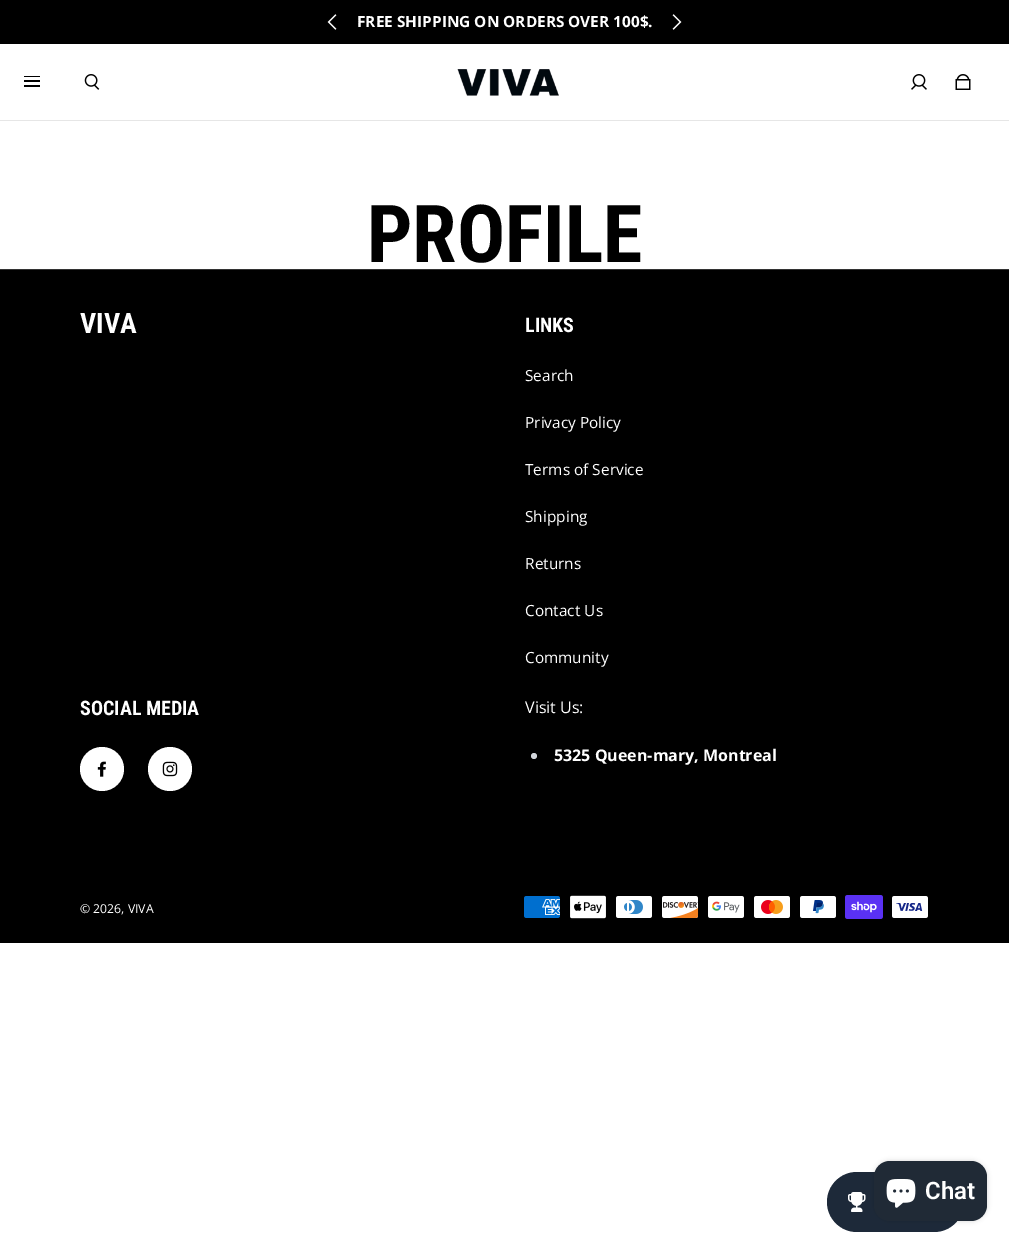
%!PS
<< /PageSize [1009 1242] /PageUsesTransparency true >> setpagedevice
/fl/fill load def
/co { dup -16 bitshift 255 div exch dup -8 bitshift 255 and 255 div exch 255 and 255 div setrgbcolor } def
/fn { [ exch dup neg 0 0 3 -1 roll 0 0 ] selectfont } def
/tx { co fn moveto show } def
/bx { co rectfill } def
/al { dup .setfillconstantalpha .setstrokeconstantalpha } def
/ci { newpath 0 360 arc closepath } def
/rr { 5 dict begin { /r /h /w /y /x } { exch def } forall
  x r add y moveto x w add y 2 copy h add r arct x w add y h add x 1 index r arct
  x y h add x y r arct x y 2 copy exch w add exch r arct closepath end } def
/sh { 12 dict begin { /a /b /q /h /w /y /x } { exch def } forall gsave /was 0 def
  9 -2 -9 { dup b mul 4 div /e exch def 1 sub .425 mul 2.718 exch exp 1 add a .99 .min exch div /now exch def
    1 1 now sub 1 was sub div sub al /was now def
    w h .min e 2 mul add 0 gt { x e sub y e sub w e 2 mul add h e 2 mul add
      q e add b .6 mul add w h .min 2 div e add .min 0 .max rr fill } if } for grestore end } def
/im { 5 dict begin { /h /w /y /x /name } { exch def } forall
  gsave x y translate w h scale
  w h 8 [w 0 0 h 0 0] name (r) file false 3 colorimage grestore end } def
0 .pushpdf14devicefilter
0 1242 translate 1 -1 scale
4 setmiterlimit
0 0 1009 1242 16#FFFFFF bx
0 0 1009 44 16#000000 bx
(media/1.raw) 327 14 10 16 im
(media/2.raw) 672 14 10 16 im
0 120 1009 1 16#E6E6E6 bx
24 76 16 1 16#000000 bx
24 80 16 2 16#000000 bx
24 85 16 2 16#000000 bx
(media/3.raw) 84 74 16 16 im
(media/4.raw) 457 69 102 27 im
(media/5.raw) 911 74 16 16 im
(media/6.raw) 955 74 16 16 im
0 270 1009 673 16#000000 bx
0 269 1009 1 16#333333 bx
16#FFFFFF co
102 769 22 ci fl
(media/7.raw) 97 761 9 16 im
170 769 22 ci fl
(media/8.raw) 162 761 16 16 im
16#D1D5DB co
534 756 3 ci fl
(media/9.raw) 524 896 36 22 im
(media/10.raw) 570 895 36 24 im
(media/11.raw) 616 896 36 22 im
(media/12.raw) 662 896 37 22 im
(media/13.raw) 708 896 36 22 im
(media/14.raw) 754 896 36 22 im
(media/15.raw) 800 896 36 22 im
(media/16.raw) 845 895 38 24 im
(media/17.raw) 892 896 36 22 im
16#1D2939 co
827 1172 137 60 30 rr fl
(media/18.raw) 848 1192 18 20 im
16#000000 co
874 1161 113 60 16 2.5 .15 sh
16#202A36 co
874 1161 113 60 16 rr fl
(media/19.raw) 886 1179 30 29 im
(FREE SHIPPING ON ORDERS OVER 100$.) 357 27 /OpenSans-Bold 15.4 16#FFFFFF tx
(PROFILE) 367 262 /RobotoCondensed-Bold 80 16#000000 tx
(VIVA) 80 333 /RobotoCondensed-Bold 28 16#FFFFFF tx
(LINKS) 525 332 /RobotoCondensed-Bold 20 16#FFFFFF tx
(Search) 525 381 /OpenSans-Regular 15.4 16#FFFFFF tx
(Privacy Policy) 525 428 /OpenSans-Regular 15.4 16#FFFFFF tx
(Terms of Service) 525 475 /OpenSans-Regular 15.4 16#FFFFFF tx
(Shipping) 525 522 /OpenSans-Regular 15.4 16#FFFFFF tx
(Returns) 525 569 /OpenSans-Regular 15.4 16#FFFFFF tx
(Contact Us) 525 616 /OpenSans-Regular 15.4 16#FFFFFF tx
(Community) 525 663 /OpenSans-Regular 15.4 16#FFFFFF tx
(SOCIAL MEDIA) 80 715 /RobotoCondensed-Bold 20 16#FFFFFF tx
(Visit Us:) 525 713 /OpenSans-Regular 16 16#FFFFFF tx
(5325 Queen-mary, Montreal) 554 761 /OpenSans-Bold 16 16#FFFFFF tx
(© 2026, VIVA) 80 913 /OpenSans-Regular 12.25 16#FFFFFF tx
(Chat) 925 1199 /Roboto-SemiBold 24 16#FFFFFF tx
.poppdf14devicefilter showpage
